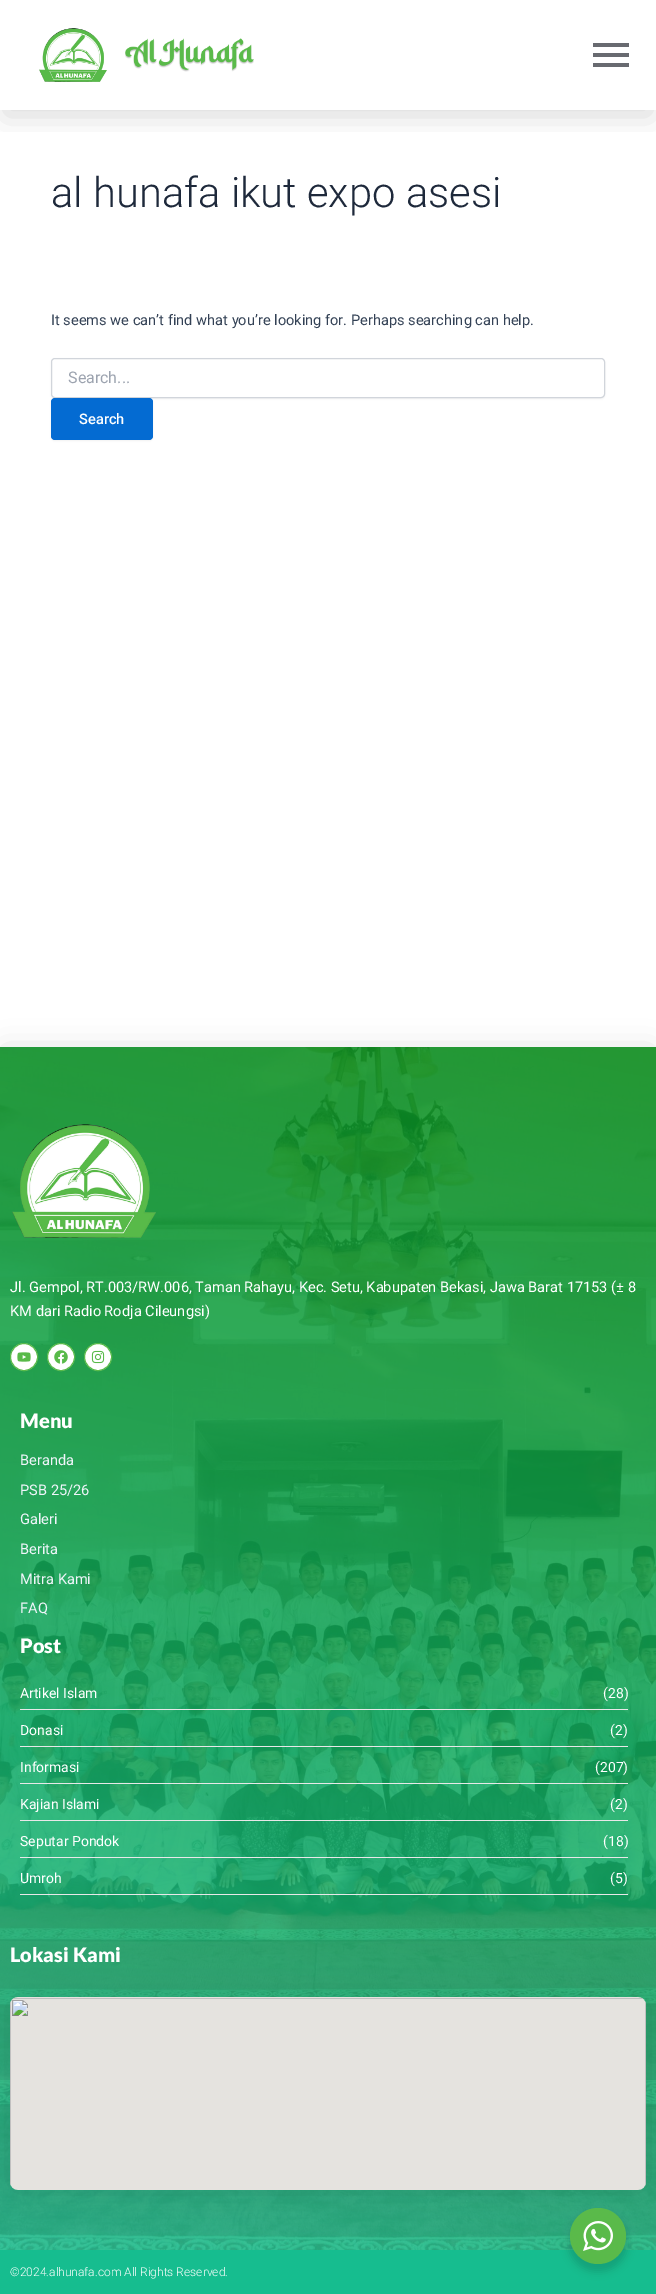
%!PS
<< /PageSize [656 2294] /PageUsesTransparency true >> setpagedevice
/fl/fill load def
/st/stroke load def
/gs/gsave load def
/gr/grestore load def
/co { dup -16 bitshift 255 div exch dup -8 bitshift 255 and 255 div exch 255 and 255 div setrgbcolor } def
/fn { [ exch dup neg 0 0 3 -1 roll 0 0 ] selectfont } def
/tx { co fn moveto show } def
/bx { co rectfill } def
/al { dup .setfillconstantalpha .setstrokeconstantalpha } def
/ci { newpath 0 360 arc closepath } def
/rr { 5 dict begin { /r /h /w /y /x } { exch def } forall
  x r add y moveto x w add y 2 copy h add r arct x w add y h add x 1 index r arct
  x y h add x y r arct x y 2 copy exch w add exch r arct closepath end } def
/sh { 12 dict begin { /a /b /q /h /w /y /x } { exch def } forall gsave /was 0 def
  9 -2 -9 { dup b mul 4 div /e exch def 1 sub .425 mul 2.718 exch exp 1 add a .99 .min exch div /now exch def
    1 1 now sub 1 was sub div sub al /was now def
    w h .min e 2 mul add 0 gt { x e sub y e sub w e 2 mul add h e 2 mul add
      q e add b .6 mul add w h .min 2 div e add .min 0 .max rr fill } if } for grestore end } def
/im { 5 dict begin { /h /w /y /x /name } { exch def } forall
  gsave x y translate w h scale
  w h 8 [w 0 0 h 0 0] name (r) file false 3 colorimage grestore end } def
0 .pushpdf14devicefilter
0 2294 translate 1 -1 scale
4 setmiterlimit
0 0 656 2294 16#FFFFFF bx
gs
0 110 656 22 rectclip
16#000000 co
5 15 646 100 0 15 .15 sh
gr
(media/1.raw) 39 28 68 54 im
(media/2.raw) 125 38 129 34 im
593 43 36 4 16#686A70 bx
593 53 36 4 16#686A70 bx
593 63 36 4 16#686A70 bx
16#000000 co
51 359 554 40 4 1 .05 sh
16#FFFFFF co
51.5 358.5 553 39 3.5 rr gs fl gr
16#D1D5DB co
st
16#000000 co
51 399 102 42 4 1 .05 sh
16#046BD2 co
51 398 102 42 4 rr fl
16#000000 co
5 1052 646 1193 0 15 .15 sh
(media/3.raw) 0 1047 656 1203 im
(media/4.raw) 12 1124 144 114 im
16#FFFFFF co
24 1357 13.5 ci gs fl gr
16#58BA49 co
st
(media/5.raw) 17 1352 14 10 im
16#FFFFFF co
61 1357 13.5 ci gs fl gr
16#58BA49 co
st
(media/6.raw) 54 1350 14 14 im
16#FFFFFF co
98 1357 13.5 ci gs fl gr
16#58BA49 co
st
(media/7.raw) 91 1350 14 14 im
20 1709 608 1 16#E8E8E8 bx
20 1746 608 1 16#E8E8E8 bx
20 1783 608 1 16#E8E8E8 bx
20 1820 608 1 16#E8E8E8 bx
20 1857 608 1 16#E8E8E8 bx
20 1894 608 1 16#E8E8E8 bx
16#000000 co
15 2002 626 183 3 15 .15 sh
(media/8.raw) 10 1997 636 193 im
0 2250 656 44 16#16BD8F bx
16#000000 co
568 2212 60 60 30 4 .14 sh
16#5ABA4A co
598 2236 28 ci fl
(media/9.raw) 583 2221 30 30 im
(al hunafa ikut expo asesi) 51 207 /Roboto-Light 41.75 16#1E293B tx
(It seems we can’t find what you’re looking for. Perhaps searching can help.) 51 325 /Roboto-Regular 14.6 16#334155 tx
(Search...) 68 383 /Roboto-Regular 16 16#9CA3AF tx
(Search) 79 424 /Roboto-Medium 14.6 16#FFFFFF tx
(Jl. Gempol, RT.003/RW.006, Taman Rahayu, Kec. Setu, Kabupaten Bekasi, Jawa Barat 17153 \(± 8) 10 1292 /Roboto-Regular 14.6 16#FFFFFF tx
(KM dari Radio Rodja Cileungsi\)) 10 1316 /Roboto-Regular 14.6 16#FFFFFF tx
(Menu) 20 1428 /Lato-Black 20 16#FFFFFF tx
(Beranda) 20 1465 /Roboto-Regular 14.6 16#F0F5FA tx
(PSB 25/26) 20 1495 /Roboto-Regular 14.6 16#F0F5FA tx
(Galeri) 20 1524 /Roboto-Regular 14.6 16#F0F5FA tx
(Berita) 20 1554 /Roboto-Regular 14.6 16#F0F5FA tx
(Mitra Kami) 20 1584 /Roboto-Regular 14.6 16#F0F5FA tx
(FAQ) 20 1613 /Roboto-Regular 14.6 16#F0F5FA tx
(Post) 20 1653 /Lato-Black 20 16#FFFFFF tx
(Artikel Islam) 20 1698 /Roboto-Regular 14 16#FFFFFF tx
(\(28\)) 603 1698 /Roboto-Regular 14 16#FFFFFF tx
(Donasi) 20 1735 /Roboto-Regular 14 16#FFFFFF tx
(\(2\)) 610 1735 /Roboto-Regular 14 16#FFFFFF tx
(Informasi) 20 1772 /Roboto-Regular 14 16#FFFFFF tx
(\(207\)) 595 1772 /Roboto-Regular 14 16#FFFFFF tx
(Kajian Islami) 20 1809 /Roboto-Regular 14 16#FFFFFF tx
(\(2\)) 610 1809 /Roboto-Regular 14 16#FFFFFF tx
(Seputar Pondok) 20 1846 /Roboto-Regular 14 16#FFFFFF tx
(\(18\)) 603 1846 /Roboto-Regular 14 16#FFFFFF tx
(Umroh) 20 1883 /Roboto-Regular 14 16#FFFFFF tx
(\(5\)) 610 1883 /Roboto-Regular 14 16#FFFFFF tx
(Lokasi Kami) 10 1962 /Lato-Black 20 16#FFFFFF tx
(©2024.alhunafa.com All Rights Reserved.) 10 2276 /Roboto-Light 12 16#FFFFFF tx
.poppdf14devicefilter showpage
